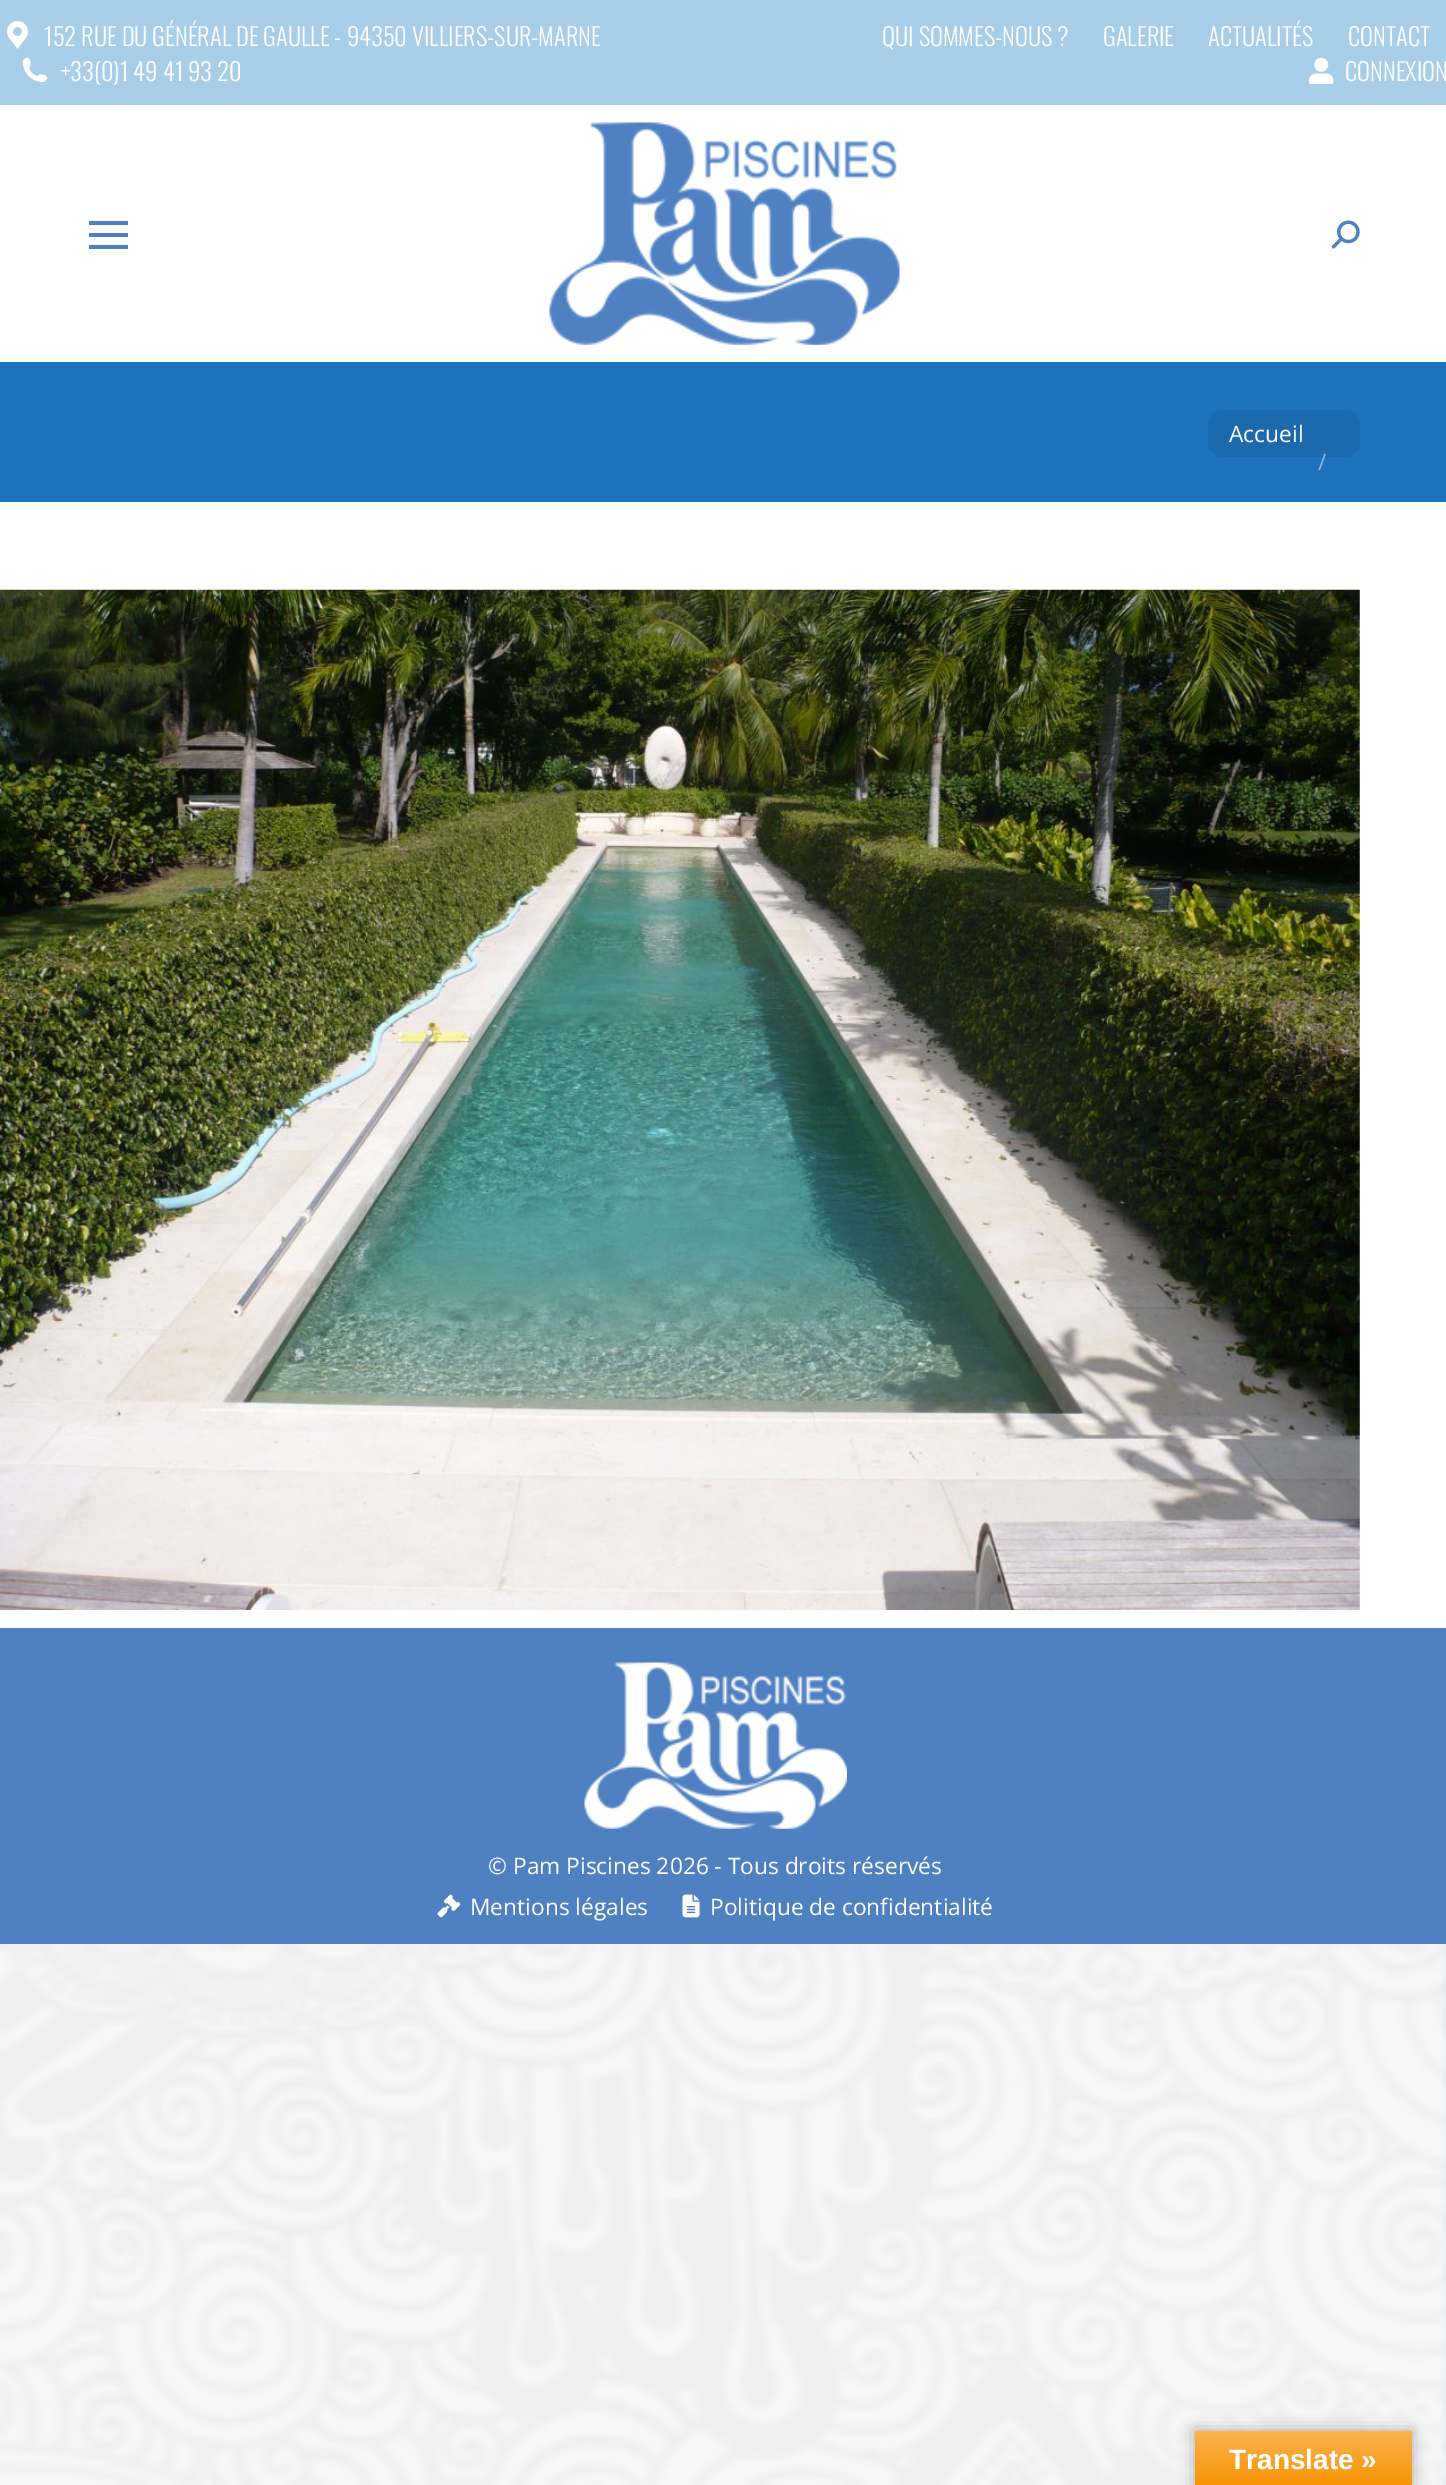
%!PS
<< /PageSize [1446 2485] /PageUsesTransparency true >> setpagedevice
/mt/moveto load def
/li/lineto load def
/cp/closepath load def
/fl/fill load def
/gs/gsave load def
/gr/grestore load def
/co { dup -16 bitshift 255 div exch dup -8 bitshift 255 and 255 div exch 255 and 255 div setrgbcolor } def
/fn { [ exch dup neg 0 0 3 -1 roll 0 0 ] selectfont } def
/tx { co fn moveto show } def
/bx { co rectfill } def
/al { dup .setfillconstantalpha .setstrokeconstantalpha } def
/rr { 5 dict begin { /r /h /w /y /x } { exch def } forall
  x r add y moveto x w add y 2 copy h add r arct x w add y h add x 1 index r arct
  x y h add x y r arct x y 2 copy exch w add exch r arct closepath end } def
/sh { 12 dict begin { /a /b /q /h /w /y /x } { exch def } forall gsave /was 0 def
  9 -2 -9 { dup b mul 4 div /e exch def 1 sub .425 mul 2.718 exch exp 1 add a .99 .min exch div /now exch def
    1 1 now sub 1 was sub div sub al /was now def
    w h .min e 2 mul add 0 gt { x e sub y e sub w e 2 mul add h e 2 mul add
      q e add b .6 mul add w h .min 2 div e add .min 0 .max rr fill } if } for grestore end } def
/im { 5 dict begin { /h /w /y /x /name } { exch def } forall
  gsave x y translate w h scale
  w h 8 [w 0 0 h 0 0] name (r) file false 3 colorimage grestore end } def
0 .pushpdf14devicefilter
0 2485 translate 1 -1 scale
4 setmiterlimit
0 0 1446 2485 16#FFFFFF bx
(media/1.raw) 0 1944 1446 541 im
0 0 1446 105 16#A9CEEA bx
(media/2.raw) 7 21 21 28 im
(media/3.raw) 22 57 26 26 im
(media/4.raw) 1309 57 25 27 im
89 221 39 4 16#4F81C2 bx
89 233 39 4 16#4F81C2 bx
89 245 39 4 16#4F81C2 bx
(media/5.raw) 549 122 351 223 im
(media/6.raw) 1331 220 29 29 im
0 362 1446 140 16#1E73BE bx
16#1D69AD co
1208 410 152 47 14 rr fl
(media/7.raw) 0 589 1360 1021 im
0 1628 1446 316 16#4F81C2 bx
(media/8.raw) 584 1662 263 167 im
(media/9.raw) 437 1894 24 24 im
(media/10.raw) 682 1894 18 24 im
16#000000 co
1195 2431 217 54 0 8 .3 sh
gs 1195 2431 mt 1412 2431 li 1412 2485 li 1195 2485 li cp clip newpath
<< /ShadingType 2 /ColorSpace /DeviceRGB /Coords [1304 2431 1304 2485] /Extend [true true] /Function << /FunctionType 2 /Domain [0 1] /C0 [.984 .706 .314] /C1 [.973 .58 .024] /N 1 >> >> shfill gr
(152 RUE DU GÉNÉRAL DE GAULLE - 94350 VILLIERS-SUR-MARNE) 44 46 /Oswald-Light 24.5 16#FFFFFF tx
(+33\(0\)1 49 41 93 20) 61 81 /Oswald-Light 24.5 16#FFFFFF tx
(QUI SOMMES-NOUS ?) 882 46 /Oswald-Light 24.5 16#FFFFFF tx
(GALERIE) 1103 46 /Oswald-Light 24.5 16#FFFFFF tx
(ACTUALITÉS) 1208 46 /Oswald-Light 24.5 16#FFFFFF tx
(CONTACT) 1348 46 /Oswald-Light 24.5 16#FFFFFF tx
(CONNEXION) 1345 81 /Oswald-Light 24.5 16#FFFFFF tx
(Accueil) 1229 442 /OpenSans-Regular 22.75 16#FFFFFF tx
(/) 1318 470 /OpenSans-Regular 22.75 16#8EB8DD tx
(© Pam Piscines 2026 - Tous droits réservés) 488 1874 /OpenSans-Regular 22.75 16#FFFFFF tx
(Mentions légales) 470 1915 /OpenSans-Regular 22.75 16#FFFFFF tx
(Politique de confidentialité) 710 1915 /OpenSans-Regular 22.75 16#FFFFFF tx
(Translate ») 1229 2469 /LiberationSans-Bold 28 16#FFFFFF tx
.poppdf14devicefilter showpage
